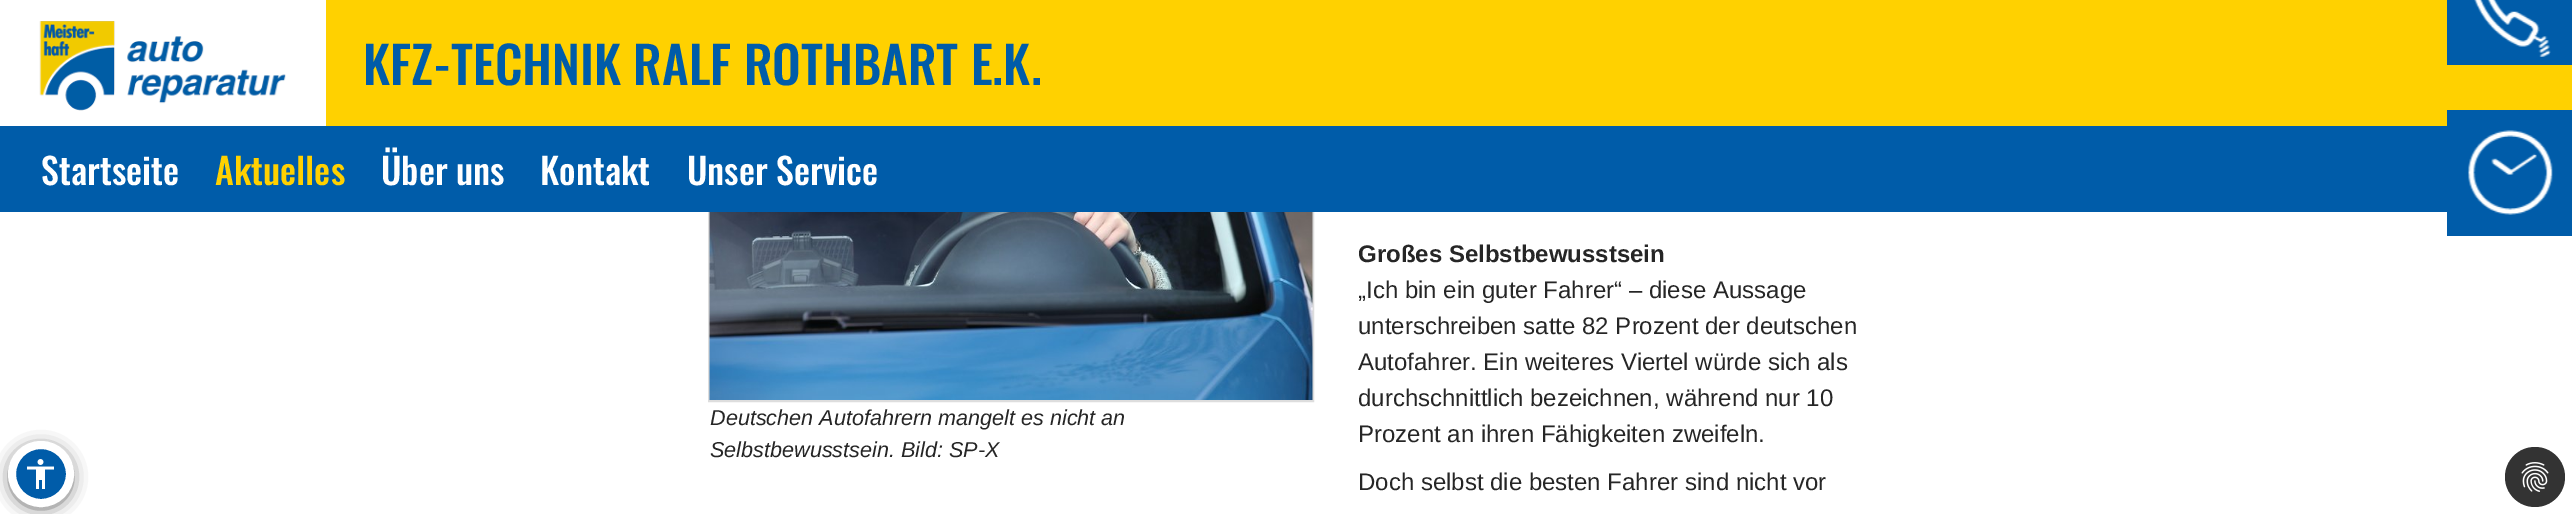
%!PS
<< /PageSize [2572 514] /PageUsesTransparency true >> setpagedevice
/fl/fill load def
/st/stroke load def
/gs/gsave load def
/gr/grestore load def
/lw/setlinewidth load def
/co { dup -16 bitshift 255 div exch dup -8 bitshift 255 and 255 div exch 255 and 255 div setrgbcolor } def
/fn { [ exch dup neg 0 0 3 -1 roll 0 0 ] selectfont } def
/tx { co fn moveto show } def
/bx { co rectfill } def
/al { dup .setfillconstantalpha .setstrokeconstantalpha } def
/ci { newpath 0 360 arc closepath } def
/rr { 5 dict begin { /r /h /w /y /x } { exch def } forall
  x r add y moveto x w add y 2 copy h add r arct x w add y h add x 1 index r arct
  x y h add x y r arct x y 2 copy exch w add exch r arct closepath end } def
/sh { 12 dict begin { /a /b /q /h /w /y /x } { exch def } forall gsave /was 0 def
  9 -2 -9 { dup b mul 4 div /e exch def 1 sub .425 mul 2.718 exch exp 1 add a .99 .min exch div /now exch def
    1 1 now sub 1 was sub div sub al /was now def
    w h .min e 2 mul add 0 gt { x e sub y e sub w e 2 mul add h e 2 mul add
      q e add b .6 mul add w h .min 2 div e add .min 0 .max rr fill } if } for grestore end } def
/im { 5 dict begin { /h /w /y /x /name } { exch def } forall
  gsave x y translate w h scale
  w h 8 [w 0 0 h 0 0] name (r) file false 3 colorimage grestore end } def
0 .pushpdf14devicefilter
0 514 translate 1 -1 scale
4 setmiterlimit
0 0 2572 514 16#FFFFFF bx
16#DDDDDD co
2 lw
709 -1 604 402 rectstroke
326 0 2246 126 16#FFD100 bx
(media/1.raw) 39 21 247 90 im
2447 0 125 65 16#005CA9 bx
(media/2.raw) 2474 0 77 57 im
2447 110 125 126 16#005CA9 bx
(media/3.raw) 2468 130 85 85 im
0 126 2447 86 16#005CA9 bx
16#000000 co
14 450 54 54 27 9 1 sh
16#005CA9 co
41 474 29 ci gs fl gr
16#FFFFFF co
8 lw
st
(media/4.raw) 27 459 27 30 im
(media/5.raw) 709 212 604 188 im
16#333333 co
2535 477 30 ci fl
(media/6.raw) 2521 462 28 30 im
(KFZ-TECHNIK RALF ROTHBART E.K.) 363 85 /Oswald-Medium 51 16#005CA9 tx
(Startseite) 41 185 /Oswald-Medium 36 16#FFFFFF tx
(Aktuelles) 215 185 /Oswald-Medium 36 16#FFD100 tx
(Über uns) 381 185 /Oswald-Medium 36 16#FFFFFF tx
(Kontakt) 540 185 /Oswald-Medium 36 16#FFFFFF tx
(Unser Service) 687 185 /Oswald-Medium 36 16#FFFFFF tx
(Deutschen Autofahrern mangelt es nicht an) 710 425 /LiberationSans-Italic 21.6 16#262626 tx
(Selbstbewusstsein. Bild: SP-X) 710 457 /LiberationSans-Italic 21.6 16#262626 tx
(Großes Selbstbewusstsein) 1358 262 /LiberationSans-Bold 24 16#262626 tx
(„Ich bin ein guter Fahrer“ – diese Aussage) 1358 298 /LiberationSans-Regular 24 16#262626 tx
(unterschreiben satte 82 Prozent der deutschen) 1358 334 /LiberationSans-Regular 24 16#262626 tx
(Autofahrer. Ein weiteres Viertel würde sich als) 1358 370 /LiberationSans-Regular 24 16#262626 tx
(durchschnittlich bezeichnen, während nur 10) 1358 406 /LiberationSans-Regular 24 16#262626 tx
(Prozent an ihren Fähigkeiten zweifeln.) 1358 442 /LiberationSans-Regular 24 16#262626 tx
(Doch selbst die besten Fahrer sind nicht vor) 1358 490 /LiberationSans-Regular 24 16#262626 tx
.poppdf14devicefilter showpage
